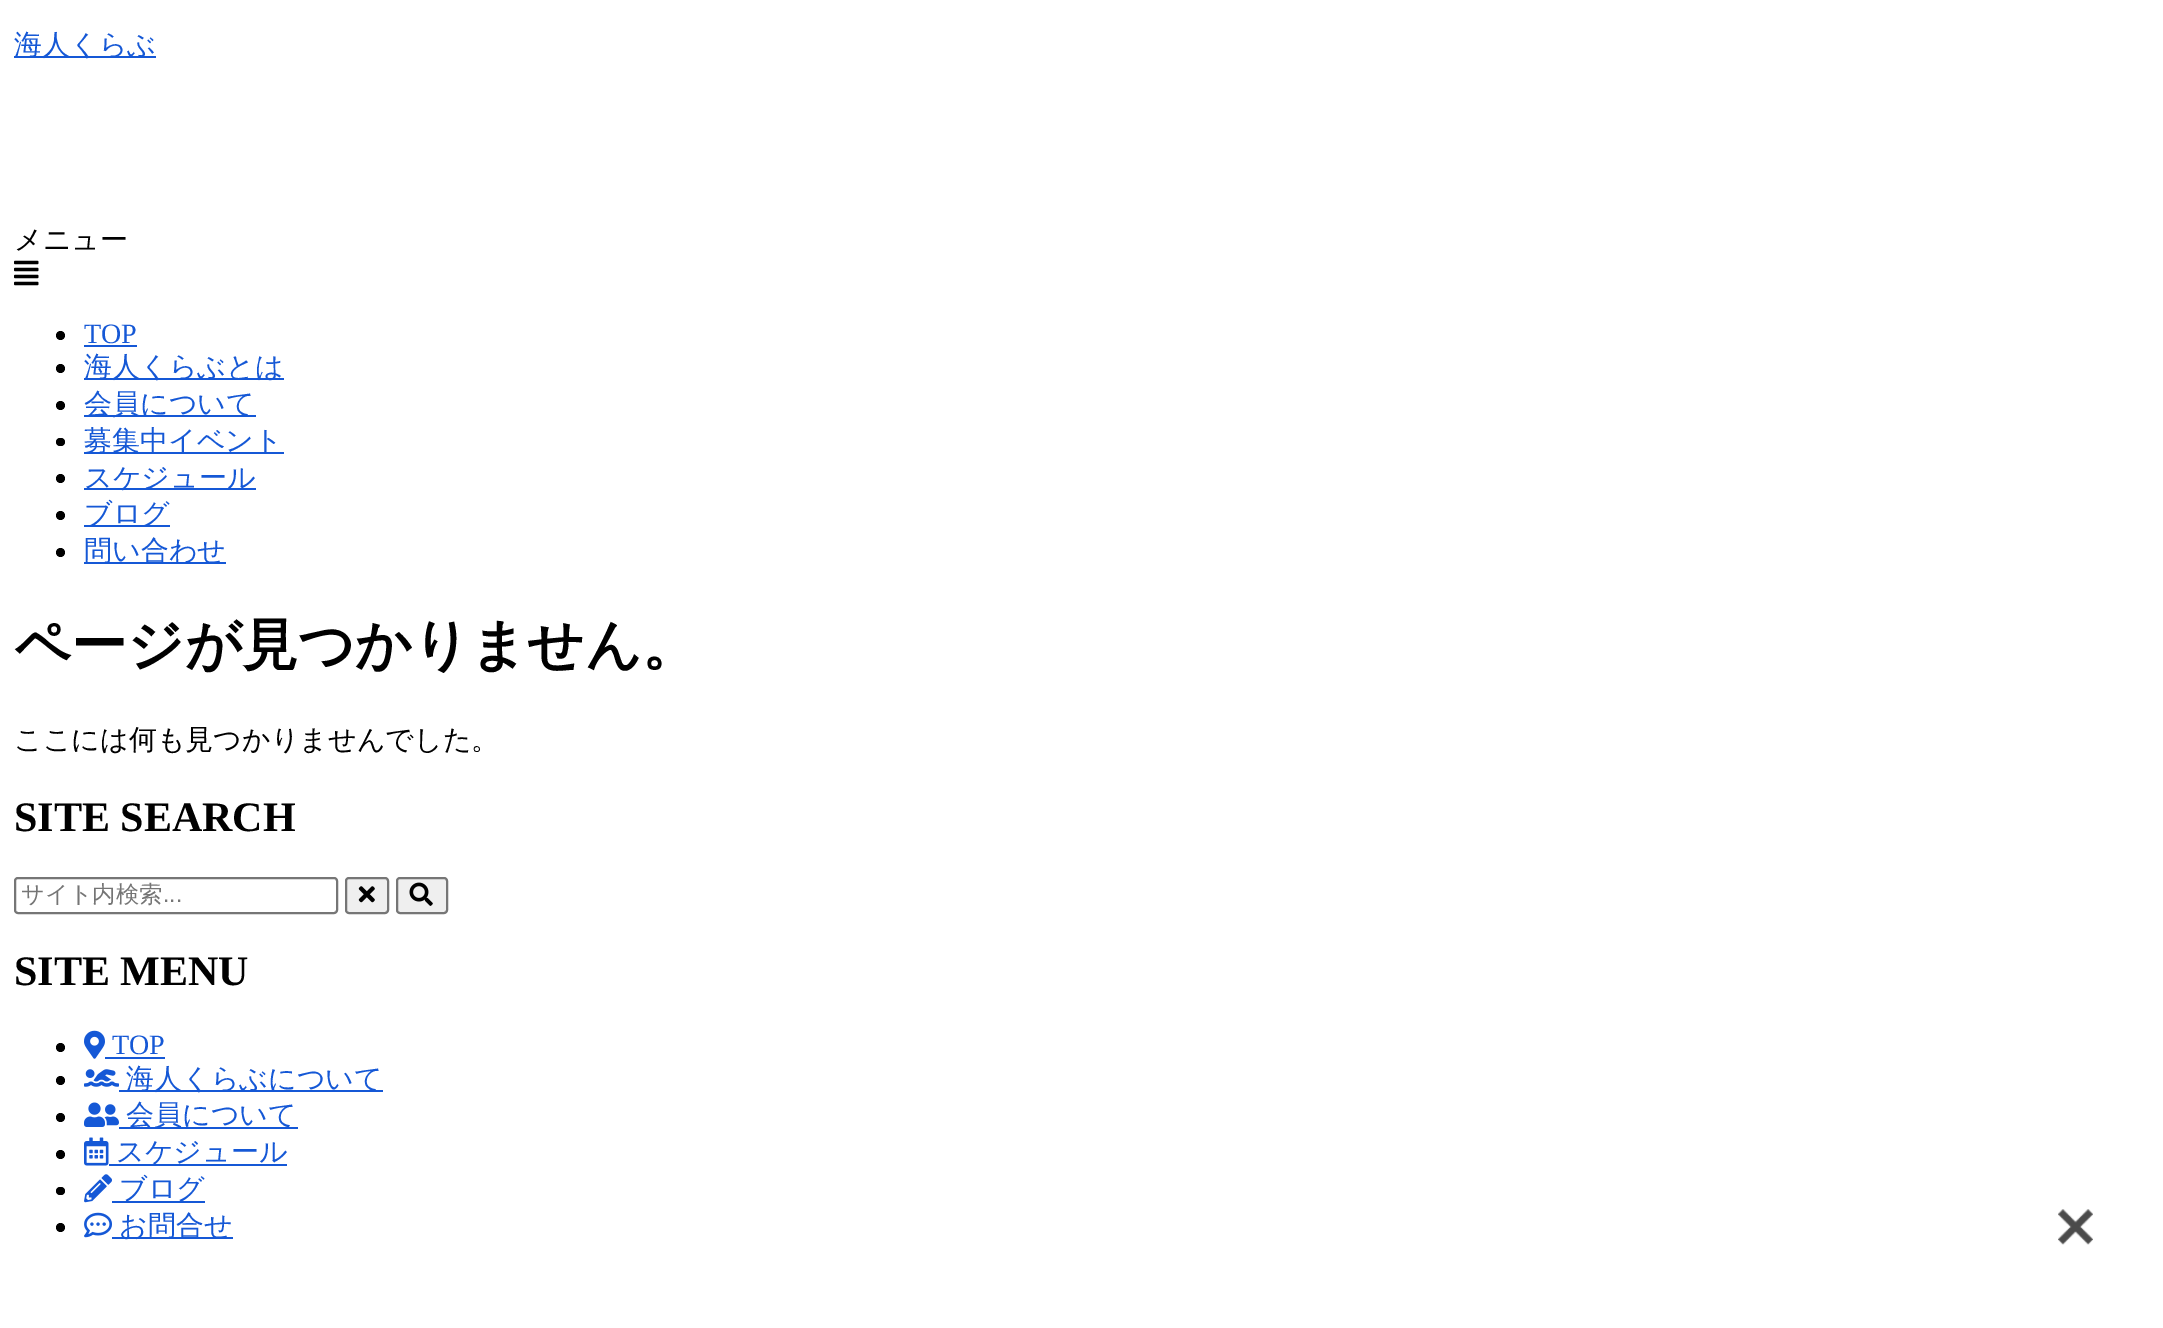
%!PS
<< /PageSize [2163 1328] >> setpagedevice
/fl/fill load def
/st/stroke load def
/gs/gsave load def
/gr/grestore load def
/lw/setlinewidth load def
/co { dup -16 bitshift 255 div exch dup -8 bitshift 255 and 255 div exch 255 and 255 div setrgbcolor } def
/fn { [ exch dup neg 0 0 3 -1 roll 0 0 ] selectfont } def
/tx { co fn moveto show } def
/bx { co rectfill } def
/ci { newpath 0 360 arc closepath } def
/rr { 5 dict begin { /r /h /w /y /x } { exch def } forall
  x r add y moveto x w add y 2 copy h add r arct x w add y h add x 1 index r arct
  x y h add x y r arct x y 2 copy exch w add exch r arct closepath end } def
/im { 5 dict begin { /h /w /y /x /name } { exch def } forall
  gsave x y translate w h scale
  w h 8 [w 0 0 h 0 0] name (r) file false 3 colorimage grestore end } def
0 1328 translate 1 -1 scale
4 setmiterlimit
0 0 2163 1328 16#FFFFFF bx
14 56 142 2 16#1558D6 bx
(media/1.raw) 14 260 25 26 im
16#000000 co
60.5 335.5 4.5 ci fl
84 345 53 2 16#1558D6 bx
16#000000 co
60.5 368.5 4.5 ci fl
84 378 200 2 16#1558D6 bx
16#000000 co
60.5 405.5 4.5 ci fl
84 415 172 2 16#1558D6 bx
16#000000 co
56 438 9 8 4 rr fl
84 452 200 2 16#1558D6 bx
16#000000 co
60.5 478.5 4.5 ci fl
84 488 172 2 16#1558D6 bx
16#000000 co
60.5 515.5 4.5 ci fl
84 525 86 2 16#1558D6 bx
16#000000 co
60.5 552.5 4.5 ci fl
84 562 142 2 16#1558D6 bx
16#767676 co
2 lw
15 878 322 35 3 rr st
16#EFEFEF co
346 878 42 35 3 rr gs fl gr
16#767676 co
st
(media/2.raw) 358 886 17 17 im
16#EFEFEF co
397 878 50 35 3 rr gs fl gr
16#767676 co
st
(media/3.raw) 409 882 24 24 im
16#000000 co
60.5 1047.5 4.5 ci fl
(media/4.raw) 84 1030 21 29 im
105 1057 60 2 16#1558D6 bx
16#000000 co
60.5 1080.5 4.5 ci fl
(media/5.raw) 84 1069 35 18 im
119 1090 264 2 16#1558D6 bx
16#000000 co
60.5 1117.5 4.5 ci fl
(media/6.raw) 84 1102 35 25 im
119 1127 179 2 16#1558D6 bx
16#000000 co
60.5 1154.5 4.5 ci fl
(media/7.raw) 84 1137 25 29 im
109 1164 178 2 16#1558D6 bx
16#000000 co
56 1187 9 8 4 rr fl
(media/8.raw) 84 1174 28 29 im
112 1201 93 2 16#1558D6 bx
16#000000 co
60.5 1227.5 4.5 ci fl
(media/9.raw) 84 1212 28 26 im
112 1237 121 2 16#1558D6 bx
(media/10.raw) 2058 1209 35 36 im
(海人くらぶ) 14 54 /WenQuanYiZenHei-Medium 28 16#1558D6 tx
(メニュー) 14 249 /WenQuanYiZenHei-Medium 28 16#000000 tx
(TOP) 84 343 /LiberationSerif-Regular 28 16#1558D6 tx
(海人くらぶとは) 84 376 /WenQuanYiZenHei-Medium 28 16#1558D6 tx
(会員について) 84 413 /WenQuanYiZenHei-Medium 28 16#1558D6 tx
(募集中イベント) 84 450 /WenQuanYiZenHei-Medium 28 16#1558D6 tx
(スケジュール) 84 487 /WenQuanYiZenHei-Medium 28 16#1558D6 tx
(ブログ) 84 523 /WenQuanYiZenHei-Medium 28 16#1558D6 tx
(問い合わせ) 84 560 /WenQuanYiZenHei-Medium 28 16#1558D6 tx
(ページが見つかりません。) 14 664 /WenQuanYiZenHei-Bold 56 16#000000 tx
(ここには何も見つかりませんでした。) 14 749 /WenQuanYiZenHei-Medium 28 16#000000 tx
(SITE SEARCH) 14 831 /LiberationSerif-Bold 42 16#000000 tx
(サイト内検索) 21 902 /WenQuanYiZenHei-Medium 23.25 16#757575 tx
(...) 163 902 /LiberationSans-Regular 23.25 16#757575 tx
(SITE MENU) 14 985 /LiberationSerif-Bold 42 16#000000 tx
(TOP) 112 1054 /LiberationSerif-Regular 28 16#1558D6 tx
(海人くらぶについて) 126 1088 /WenQuanYiZenHei-Medium 28 16#1558D6 tx
(会員について) 126 1124 /WenQuanYiZenHei-Medium 28 16#1558D6 tx
(スケジュール) 116 1161 /WenQuanYiZenHei-Medium 28 16#1558D6 tx
(ブログ) 119 1198 /WenQuanYiZenHei-Medium 28 16#1558D6 tx
(お問合せ) 119 1235 /WenQuanYiZenHei-Medium 28 16#1558D6 tx
showpage
